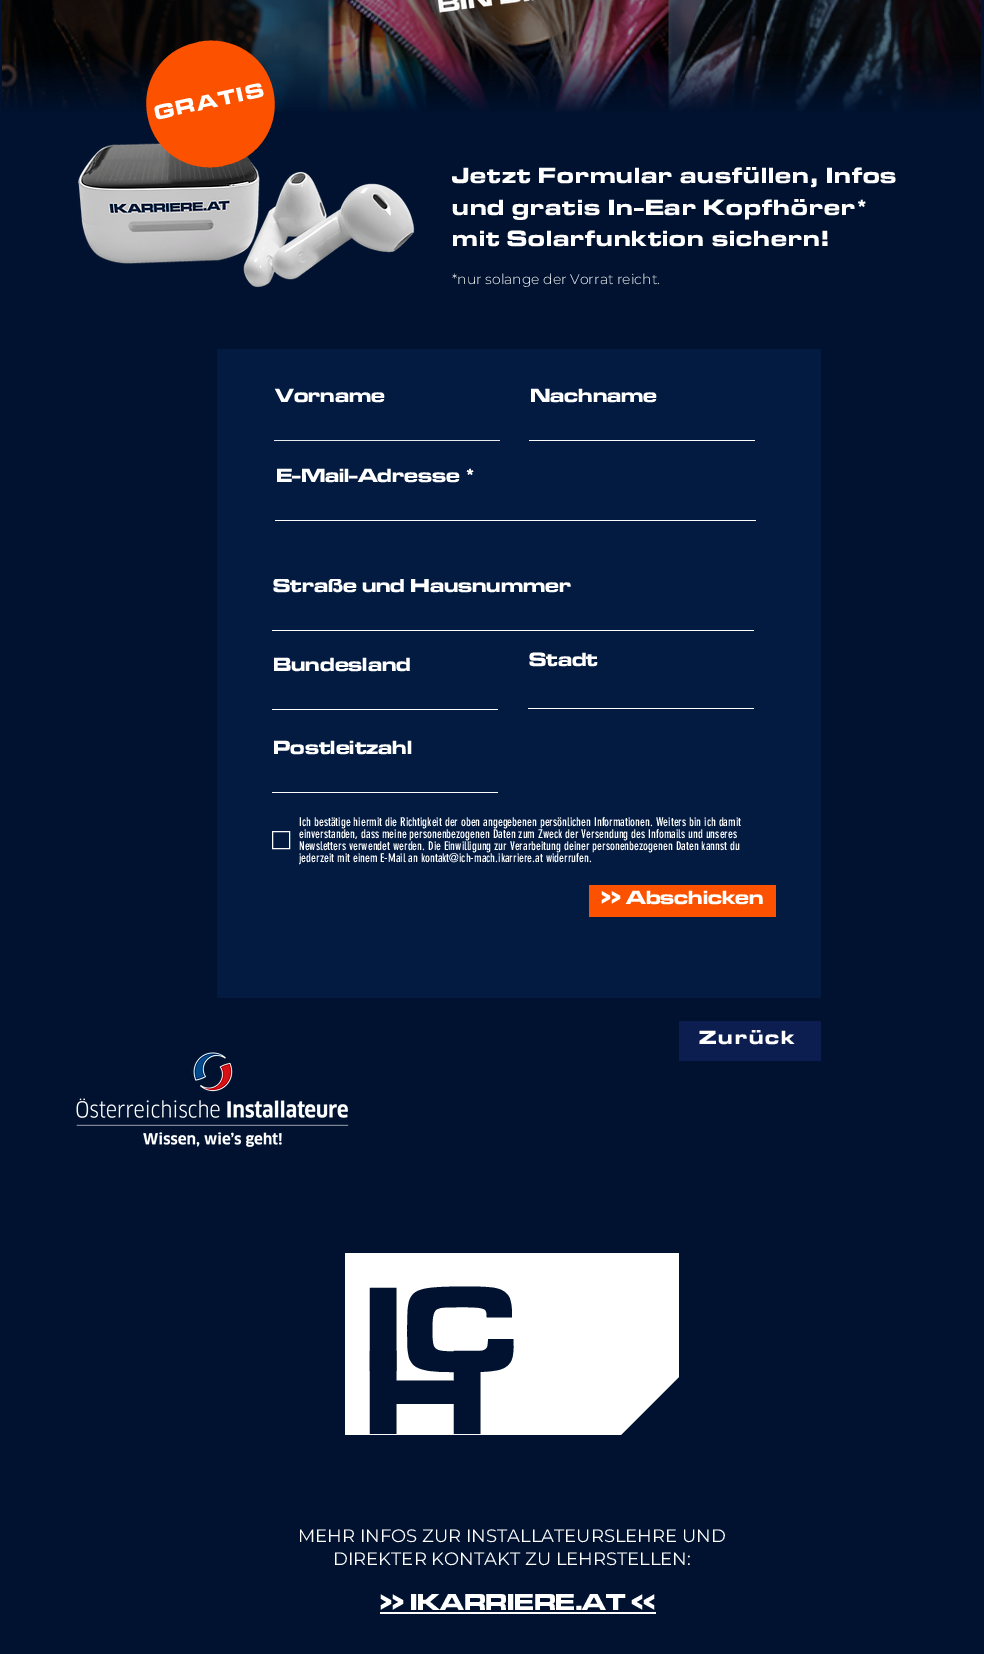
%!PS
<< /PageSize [984 1654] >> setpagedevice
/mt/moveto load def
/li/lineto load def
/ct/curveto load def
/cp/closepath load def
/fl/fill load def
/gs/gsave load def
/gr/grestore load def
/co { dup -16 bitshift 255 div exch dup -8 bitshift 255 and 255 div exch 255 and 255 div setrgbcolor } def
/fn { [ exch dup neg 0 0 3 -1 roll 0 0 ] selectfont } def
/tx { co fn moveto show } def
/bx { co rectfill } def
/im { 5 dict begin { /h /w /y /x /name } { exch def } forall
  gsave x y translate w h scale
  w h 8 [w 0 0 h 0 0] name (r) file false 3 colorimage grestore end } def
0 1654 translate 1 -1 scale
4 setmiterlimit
0 0 984 1654 16#00122F bx
(media/1.raw) 2 0 979 112 im
(media/2.raw) 437 0 102 15 im
(media/3.raw) 77 143 339 145 im
16#FC5200 co
195 43 mt 198 42 li 232 35 266 56 273 90 ct 281 124 260 158 226 165 ct 223 166 li 189 173 155 152 148 118 ct 140 84 161 50 195 43 ct cp fl
217 349 604 649 16#031B40 bx
274 440 226 1 16#E8EAEE bx
529 440 226 1 16#FFFFFF bx
275 520 481 1 16#FFFFFF bx
272 630 482 1 16#FFFFFF bx
272 709 226 1 16#FFFFFF bx
528 708 226 1 16#FFFFFF bx
272 792 226 1 16#FFFFFF bx
272.5 831.5 17 17 rectstroke
589 885 187 32 16#FC5200 bx
679 1021 142 40 16#0B1E4F bx
(media/4.raw) 76 1052 273 95 im
16#FFFFFF co
345 1253 mt 345 1435 li 621 1435 li 679 1377 li 679 1253 li cp fl
380 1612 276 2 16#FFFFFF bx
/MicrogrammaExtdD-Bold 21 fn
gs 156 120 translate -12.6 rotate 0 0 mt 2 0 (GRATIS) ashow gr
/MicrogrammaExtdD-Bold 23 fn
452 183 mt 1.15 0 (Jetzt Formular ausfüllen, Infos) ashow
452 215 mt 1.15 0 (und gratis In-Ear Kopfhörer*) ashow
452 246 mt 1.15 0 (mit Solarfunktion sichern!) ashow
(*nur solange der Vorrat reicht.) 452 284 /Montserrat-Light 14 16#FFFFFF tx
(Vorname) 275 402 /MicrogrammaExtdD-Bold 20 16#FFFFFF tx
(Nachname) 530 402 /MicrogrammaExtdD-Bold 20 16#FFFFFF tx
(E-Mail-Adresse *) 276 482 /MicrogrammaExtdD-Bold 20 16#FFFFFF tx
gs
272 579 482 224 rectclip
(Straße und Hausnummer) 273 592 /MicrogrammaExtdD-Bold 20 16#FFFFFF tx
gr
(Bundesland) 273 671 /MicrogrammaExtdD-Bold 20 16#FFFFFF tx
(Stadt) 529 666 /MicrogrammaExtdD-Bold 20 16#FFFFFF tx
(Postleitzahl) 273 754 /MicrogrammaExtdD-Bold 20 16#FFFFFF tx
(Ich bestätige hiermit die Richtigkeit der oben angegebenen persönlichen Informationen. Weiters bin ich damit) 299 826 /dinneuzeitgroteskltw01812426-Regular 12 16#FFFFFF tx
(einverstanden, dass meine personenbezogenen Daten zum Zweck der Versendung des Infomails und unseres) 299 838 /dinneuzeitgroteskltw01812426-Regular 12 16#FFFFFF tx
(Newsletters verwendet werden. Die Einwilligung zur Verarbeitung deiner personenbezogenen Daten kannst du) 299 850 /dinneuzeitgroteskltw01812426-Regular 12 16#FFFFFF tx
(jederzeit mit einem E-Mail an kontakt@ich-mach.ikarriere.at widerrufen.) 299 862 /dinneuzeitgroteskltw01812426-Regular 12 16#FFFFFF tx
(>> Abschicken) 601 904 /MicrogrammaExtdD-Bold 20 16#FFFFFF tx
699 1044 mt 2 0 (Zurück) ashow
/MicrogrammaExtdD-Bold 125 fn
16#00122F co
364 1371 mt 1 0 (IC) ashow
364 1434 mt 1 0 (H) ashow
(MEHR INFOS ZUR INSTALLATEURSLEHRE UND) 298 1542 /Montserrat-Regular 18 16#FFFFFF tx
(DIREKTER KONTAKT ZU LEHRSTELLEN:) 333 1565 /Montserrat-Regular 18 16#FFFFFF tx
(>> IKARRIERE.AT <<) 380 1610 /MicrogrammaExtdD-Bold 24 16#FFFFFF tx
showpage
